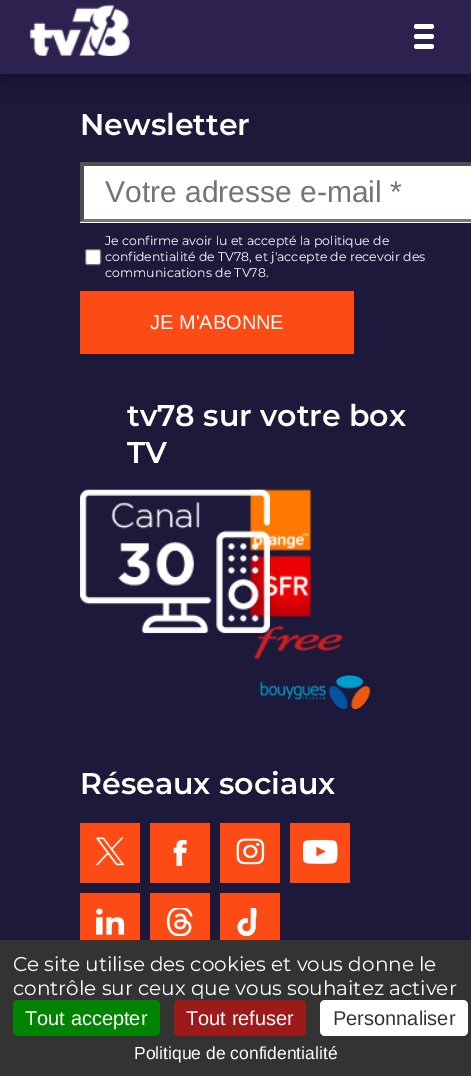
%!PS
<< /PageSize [471 1076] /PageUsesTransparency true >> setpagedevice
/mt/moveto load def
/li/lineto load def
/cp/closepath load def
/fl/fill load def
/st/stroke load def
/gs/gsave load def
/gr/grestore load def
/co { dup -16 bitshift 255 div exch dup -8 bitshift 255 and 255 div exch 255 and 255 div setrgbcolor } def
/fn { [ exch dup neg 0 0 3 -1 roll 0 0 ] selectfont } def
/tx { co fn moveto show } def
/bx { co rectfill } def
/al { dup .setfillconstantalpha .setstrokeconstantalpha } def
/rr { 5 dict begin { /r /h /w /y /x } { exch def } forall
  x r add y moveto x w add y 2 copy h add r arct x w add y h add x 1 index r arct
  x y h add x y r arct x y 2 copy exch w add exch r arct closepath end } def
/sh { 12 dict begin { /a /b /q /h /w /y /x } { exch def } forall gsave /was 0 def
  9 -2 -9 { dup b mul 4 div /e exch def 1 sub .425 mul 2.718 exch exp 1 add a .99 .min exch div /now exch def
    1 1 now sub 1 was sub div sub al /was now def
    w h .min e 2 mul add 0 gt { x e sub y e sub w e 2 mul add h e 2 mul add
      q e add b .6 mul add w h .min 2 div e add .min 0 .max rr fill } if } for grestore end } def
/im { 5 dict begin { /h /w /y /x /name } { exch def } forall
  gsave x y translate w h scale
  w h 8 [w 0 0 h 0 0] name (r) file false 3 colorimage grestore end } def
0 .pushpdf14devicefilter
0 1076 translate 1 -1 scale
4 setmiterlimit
0 0 471 1076 16#1C193A bx
16#000000 co
0 -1 471 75 0 15.5 .5 sh
0 0 471 74 16#2D2150 bx
(media/1.raw) 30 4 100 52 im
16#FFFFFF co
414 24 20 5 2.5 rr fl
414 34 20 5 2.5 rr fl
414 44 20 5 2.5 rr fl
80 163 391 60 16#FFFFFF bx
16#4F4F4F co
80 162 mt 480 162 li 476 166 li 84 166 li cp fl
16#767676 co
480 222 mt 80 222 li 84 219 li 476 219 li cp fl
16#4F4F4F co
80 222 mt 80 162 li 84 166 li 84 219 li cp fl
16#FFFFFF co
85.5 249.5 15 15 2 rr gs fl gr
16#767676 co
st
80 291 274 63 16#FC4B15 bx
(media/3.raw) 250 489 62 62 im
(media/4.raw) 250 555 62 62 im
(media/5.raw) 253 625 90 35 im
(media/2.raw) 80 489 190 145 im
(media/6.raw) 259 675 112 35 im
80 823 60 60 16#FC4B15 bx
(media/7.raw) 95 837 30 29 im
150 823 60 60 16#FC4B15 bx
(media/8.raw) 173 839 14 27 im
220 823 60 60 16#FC4B15 bx
(media/9.raw) 236 838 29 27 im
290 823 60 60 16#FC4B15 bx
(media/10.raw) 303 839 35 25 im
80 893 60 47 16#FC4B15 bx
(media/11.raw) 96 908 29 27 im
150 893 60 47 16#FC4B15 bx
(media/12.raw) 166 908 27 28 im
220 893 60 47 16#FC4B15 bx
(media/13.raw) 237 908 20 28 im
0 940 471 136 16#333333 bx
16#008300 co
13 1000 147 36 5 rr fl
16#9C1A1A co
174 1000 132 36 5 rr fl
16#FFFFFF co
320 1000 148 36 5 rr fl
(Newsletter) 80 135 /Montserrat-SemiBold 30 16#FFFFFF tx
(Votre adresse e-mail *) 105 202 /LiberationSans-Regular 30 16#757575 tx
(Je confirme avoir lu et accepté la politique de) 105 245 /Montserrat-Regular 12.5 16#FFFFFF tx
(confidentialité de TV78, et j'accepte de recevoir des) 105 261 /Montserrat-Regular 12.5 16#FFFFFF tx
(communications de TV78.) 105 277 /Montserrat-Regular 12.5 16#FFFFFF tx
(JE M'ABONNE) 150 329 /LiberationSans-Regular 20 16#FFFFFF tx
(tv78 sur votre box) 127 426 /Montserrat-SemiBold 30 16#FFFFFF tx
(TV) 127 463 /Montserrat-SemiBold 30 16#FFFFFF tx
(Réseaux sociaux) 80 794 /Montserrat-SemiBold 30 16#FFFFFF tx
(Ce site utilise des cookies et vous donne le) 13 971 /Montserrat-Regular 20 16#FFFFFF tx
(contrôle sur ceux que vous souhaitez activer) 13 995 /Montserrat-Regular 20 16#FFFFFF tx
(Tout accepter) 25 1025 /LiberationSans-Regular 20 16#FFFFFF tx
(Tout refuser) 186 1025 /LiberationSans-Regular 20 16#FFFFFF tx
(Personnaliser) 333 1025 /LiberationSans-Regular 20 16#333333 tx
(Politique de confidentialité) 134 1059 /LiberationSans-Regular 17.5 16#FFFFFF tx
.poppdf14devicefilter showpage
